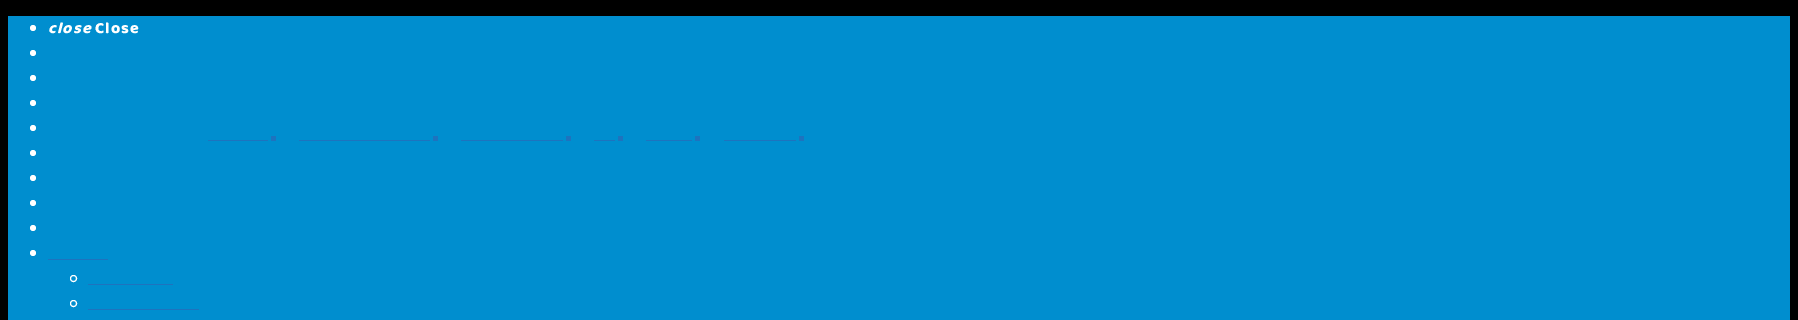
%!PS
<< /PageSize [1798 320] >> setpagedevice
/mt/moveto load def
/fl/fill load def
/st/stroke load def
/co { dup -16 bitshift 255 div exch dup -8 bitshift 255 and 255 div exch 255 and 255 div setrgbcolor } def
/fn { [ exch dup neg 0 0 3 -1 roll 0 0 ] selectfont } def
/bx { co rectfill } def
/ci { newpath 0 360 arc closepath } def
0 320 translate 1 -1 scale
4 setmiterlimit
0 0 1798 320 16#000000 bx
8 16 1782 304 16#008ECF bx
16#FFFFFF co
33 28 3 ci fl
33 53 3 ci fl
33 78 3 ci fl
33 103 3 ci fl
33 128 3 ci fl
33 153 3 ci fl
33 178 3 ci fl
33 203 3 ci fl
33 228 3 ci fl
33 253 3 ci fl
48 259 60 1 16#1E73BE bx
16#FFFFFF co
73.5 278.5 3 ci st
88 284 85 1 16#1E73BE bx
16#FFFFFF co
73.5 303.5 3 ci st
88 309 111 1 16#1E73BE bx
208 140 60 1 16#1E73BE bx
271 136 5 5 16#1E73BE bx
299 140 131 1 16#1E73BE bx
433 136 5 5 16#1E73BE bx
461 140 102 1 16#1E73BE bx
566 136 5 5 16#1E73BE bx
594 140 21 1 16#1E73BE bx
618 136 5 5 16#1E73BE bx
646 140 46 1 16#1E73BE bx
695 136 5 5 16#1E73BE bx
724 140 72 1 16#1E73BE bx
799 136 5 5 16#1E73BE bx
/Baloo-Italic 16 fn
16#FFFFFF co
48 33 mt 1 0 (close) ashow
/Baloo-Regular 16 fn
95 33 mt 1 0 (Close) ashow
showpage
